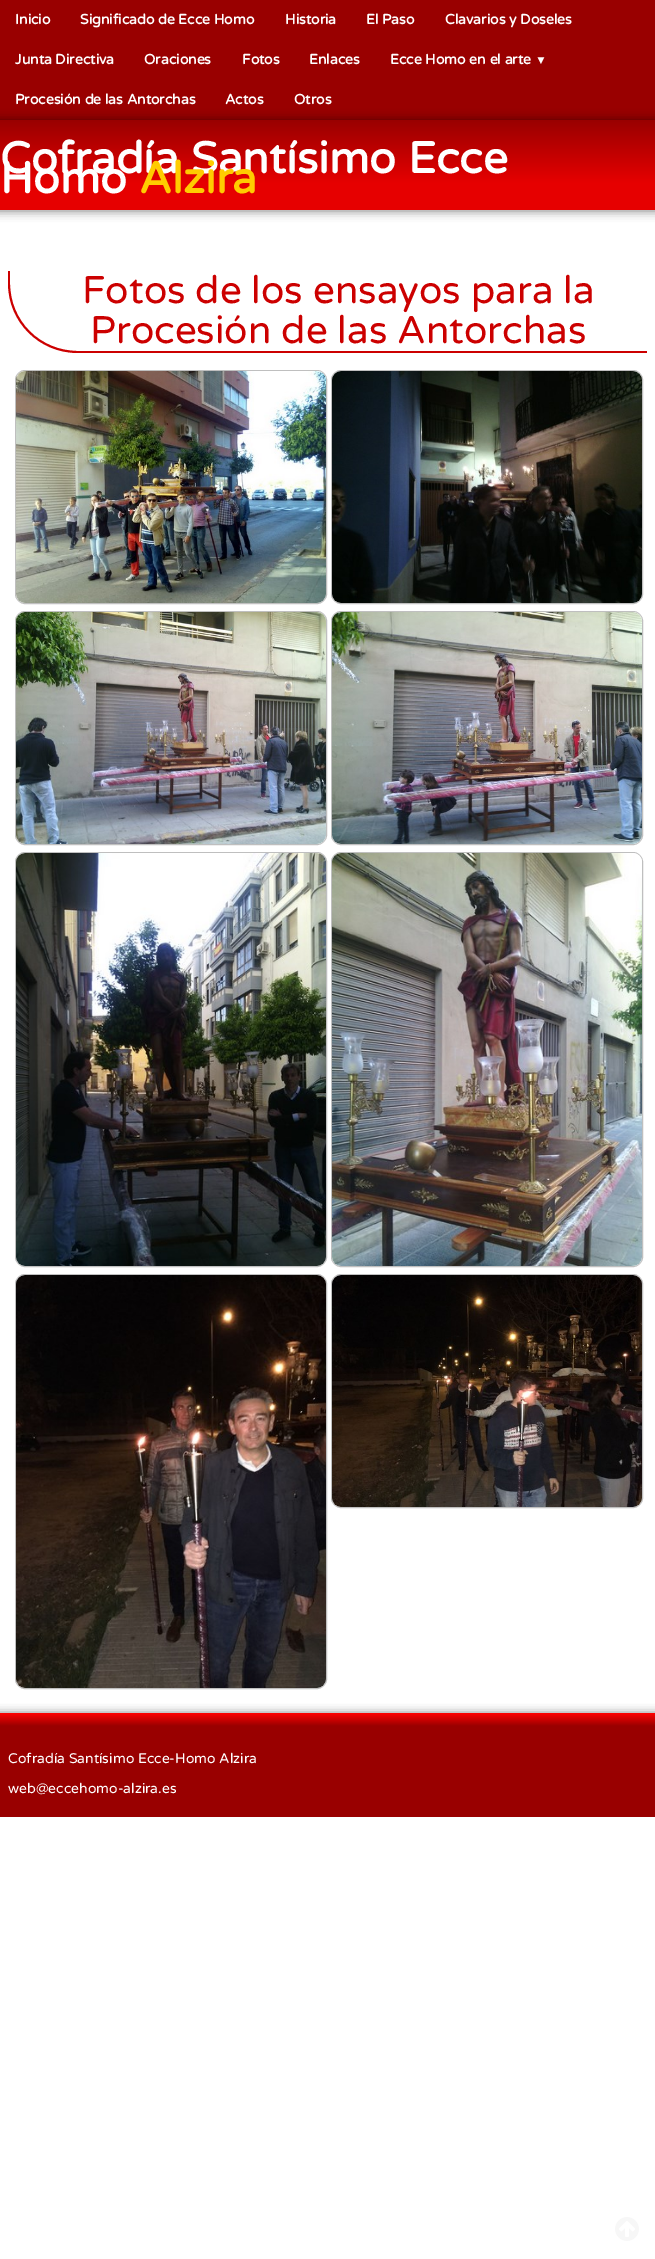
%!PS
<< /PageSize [655 2259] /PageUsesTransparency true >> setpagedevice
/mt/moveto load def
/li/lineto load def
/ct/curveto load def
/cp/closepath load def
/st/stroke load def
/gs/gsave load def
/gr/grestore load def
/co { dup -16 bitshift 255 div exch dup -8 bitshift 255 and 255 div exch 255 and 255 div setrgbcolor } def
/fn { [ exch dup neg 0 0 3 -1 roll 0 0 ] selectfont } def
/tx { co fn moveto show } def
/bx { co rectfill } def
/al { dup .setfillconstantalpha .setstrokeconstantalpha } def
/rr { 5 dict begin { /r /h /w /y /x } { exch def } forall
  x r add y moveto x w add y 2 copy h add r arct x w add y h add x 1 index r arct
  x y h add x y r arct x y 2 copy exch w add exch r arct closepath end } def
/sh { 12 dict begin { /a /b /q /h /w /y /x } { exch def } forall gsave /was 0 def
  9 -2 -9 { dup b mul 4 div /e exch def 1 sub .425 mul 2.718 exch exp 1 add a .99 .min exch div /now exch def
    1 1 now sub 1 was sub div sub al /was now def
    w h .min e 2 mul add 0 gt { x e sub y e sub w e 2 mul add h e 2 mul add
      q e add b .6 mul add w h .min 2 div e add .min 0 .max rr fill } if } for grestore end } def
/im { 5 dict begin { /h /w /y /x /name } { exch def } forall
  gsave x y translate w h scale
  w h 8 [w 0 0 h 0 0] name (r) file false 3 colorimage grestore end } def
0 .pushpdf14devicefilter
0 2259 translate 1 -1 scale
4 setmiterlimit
0 0 655 2259 16#FFFFFF bx
0 0 655 120 16#990000 bx
16#000000 co
-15 120 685 91 0 5 .5 sh
gs 0 120 mt 655 120 li 655 210 li 0 210 li cp clip newpath
<< /ShadingType 2 /ColorSpace /DeviceRGB /Coords [328 120 328 210] /Extend [true true] /Function << /FunctionType 3 /Domain [0 1] /Functions [<< /FunctionType 2 /Domain [0 1] /C0 [.6 0 0] /C1 [.902 0 0] /N 1 >> << /FunctionType 2 /Domain [0 1] /C0 [.902 0 0] /C1 [.902 0 0] /N 1 >>] /Bounds [.7] /Encode [0 1 0 1] >> >> shfill gr
0 210 655 1 16#BFBFBF bx
16#CC0000 co
8 271 mt 647 271 li 647 353 li 78 353 li 39 353 8 322 8 283 ct cp 10 271 mt 647 271 li 647 351 li 78 351 li 40 351 10 321 10 283 ct cp eofill
16#BFBFBF co
15.5 370.5 311 233 9.5 rr st
(media/1.raw) 16 371 310 232 im
15.5 611.5 311 233 9.5 rr st
(media/2.raw) 16 612 310 232 im
331.5 370.5 311 233 9.5 rr st
(media/3.raw) 332 371 310 232 im
331.5 611.5 311 233 9.5 rr st
(media/4.raw) 332 612 310 232 im
15.5 852.5 311 414 9.5 rr st
(media/5.raw) 16 853 310 413 im
15.5 1274.5 311 414 9.5 rr st
(media/6.raw) 16 1275 310 413 im
331.5 852.5 311 414 9.5 rr st
(media/7.raw) 332 853 310 413 im
331.5 1274.5 311 233 9.5 rr st
(media/8.raw) 332 1275 310 232 im
16#000000 co
-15 1715 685 26 0 5 .75 sh
gs 0 1713 mt 655 1713 li 655 1739 li 0 1739 li cp clip newpath
<< /ShadingType 2 /ColorSpace /DeviceRGB /Coords [328 1713 328 1739] /Extend [true true] /Function << /FunctionType 3 /Domain [0 1] /Functions [<< /FunctionType 2 /Domain [0 1] /C0 [1 0 0] /C1 [.6 0 0] /N 1 >> << /FunctionType 2 /Domain [0 1] /C0 [.6 0 0] /C1 [.6 0 0] /N 1 >>] /Bounds [.5] /Encode [0 1 0 1] >> >> shfill gr
0 1739 655 78 16#990000 bx
(media/9.raw) 615 2217 24 24 im
(Inicio) 15 24 /VarelaRound-Bold 14 16#FFFFFF tx
(Significado de Ecce Homo) 80 24 /VarelaRound-Bold 14 16#FFFFFF tx
(Historia) 285 24 /VarelaRound-Bold 14 16#FFFFFF tx
(El Paso) 366 24 /VarelaRound-Bold 14 16#FFFFFF tx
(Clavarios y Doseles) 445 24 /VarelaRound-Bold 14 16#FFFFFF tx
(Junta Directiva) 15 64 /VarelaRound-Bold 14 16#FFFFFF tx
(Oraciones) 144 64 /VarelaRound-Bold 14 16#FFFFFF tx
(Fotos) 242 64 /VarelaRound-Bold 14 16#FFFFFF tx
(Enlaces) 309 64 /VarelaRound-Bold 14 16#FFFFFF tx
(Ecce Homo en el arte) 390 64 /VarelaRound-Bold 14 16#FFFFFF tx
(▼) 535 64 /LiberationSerif-Bold 12 16#FFFFFF tx
(Procesión de las Antorchas) 15 104 /VarelaRound-Bold 14 16#FFFFFF tx
(Actos) 225 104 /VarelaRound-Bold 14 16#FFFFFF tx
(Otros) 294 104 /VarelaRound-Bold 14 16#FFFFFF tx
(Cofradía Santísimo Ecce) 0 173 /VarelaRound-Bold 44 16#FFFFFF tx
(Homo) 0 193 /VarelaRound-Bold 44 16#FFFFFF tx
(Alzira) 139 193 /VarelaRound-Bold 44 16#FFCC00 tx
(Fotos de los ensayos para la) 82 303 /VarelaRound-Regular 38.5 16#CC0000 tx
(Procesión de las Antorchas) 90 343 /VarelaRound-Regular 38.5 16#CC0000 tx
(Cofradía Santísimo Ecce-Homo Alzira) 8 1763 /VarelaRound-Regular 14 16#FFFFFF tx
(web@eccehomo-alzira.es) 8 1793 /VarelaRound-Regular 14 16#FFFFFF tx
.poppdf14devicefilter showpage
